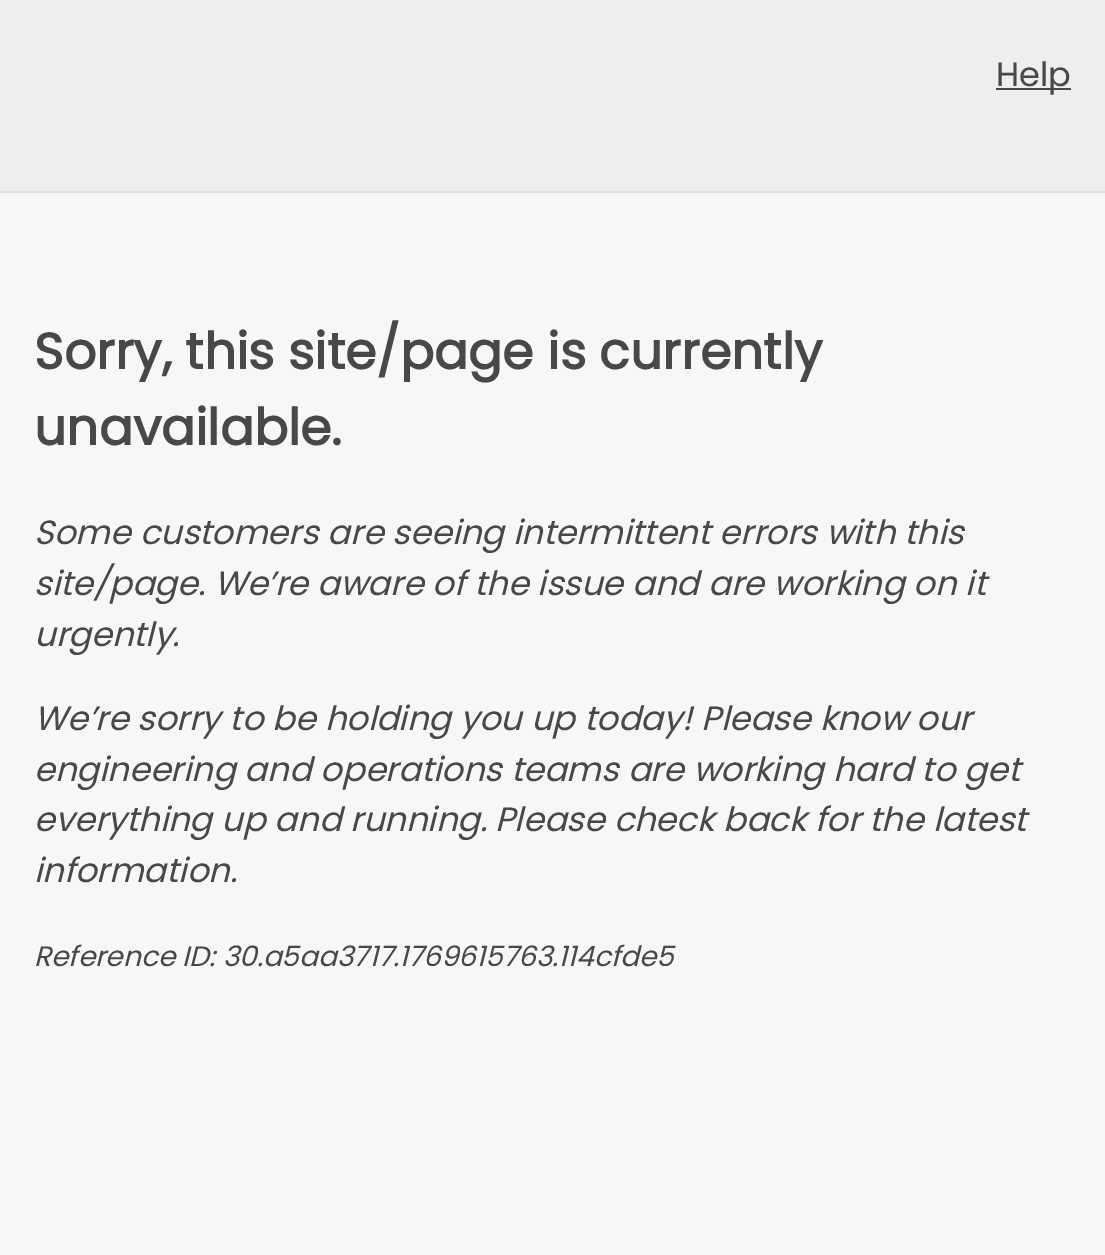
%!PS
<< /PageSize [1105 1255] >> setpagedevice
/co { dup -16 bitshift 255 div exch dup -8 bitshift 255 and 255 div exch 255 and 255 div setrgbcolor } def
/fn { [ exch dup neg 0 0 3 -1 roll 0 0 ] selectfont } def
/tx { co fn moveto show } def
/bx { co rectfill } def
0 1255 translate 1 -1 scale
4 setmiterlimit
0 0 1105 1255 16#F7F7F7 bx
0 0 1105 191 16#EEEEEE bx
0 191 1105 2 16#E0E0E0 bx
996 88 75 2 16#484848 bx
(Help) 996 86 /Poppins-Regular 33.6 16#484848 tx
(Sorry, this site/page is currently) 34 369 /Poppins-Bold 50.4 16#484848 tx
(unavailable.) 34 445 /Poppins-Bold 50.4 16#484848 tx
(Some customers are seeing intermittent errors with this) 34 544 /Poppins-Italic 33.6 16#484848 tx
(site/page. We’re aware of the issue and are working on it) 34 595 /Poppins-Italic 33.6 16#484848 tx
(urgently.) 34 646 /Poppins-Italic 33.6 16#484848 tx
(We’re sorry to be holding you up today! Please know our) 34 730 /Poppins-Italic 33.6 16#484848 tx
(engineering and operations teams are working hard to get) 34 781 /Poppins-Italic 33.6 16#484848 tx
(everything up and running.) 34 831 /Poppins-Italic 33.6 16#484848 tx
(Please check back for the latest) 495 831 /Poppins-Italic 33.6 16#484848 tx
(information.) 34 882 /Poppins-Italic 33.6 16#484848 tx
(Reference ID: 30.a5aa3717.1769615763.114cfde5) 34 966 /Poppins-Italic 28 16#484848 tx
showpage
